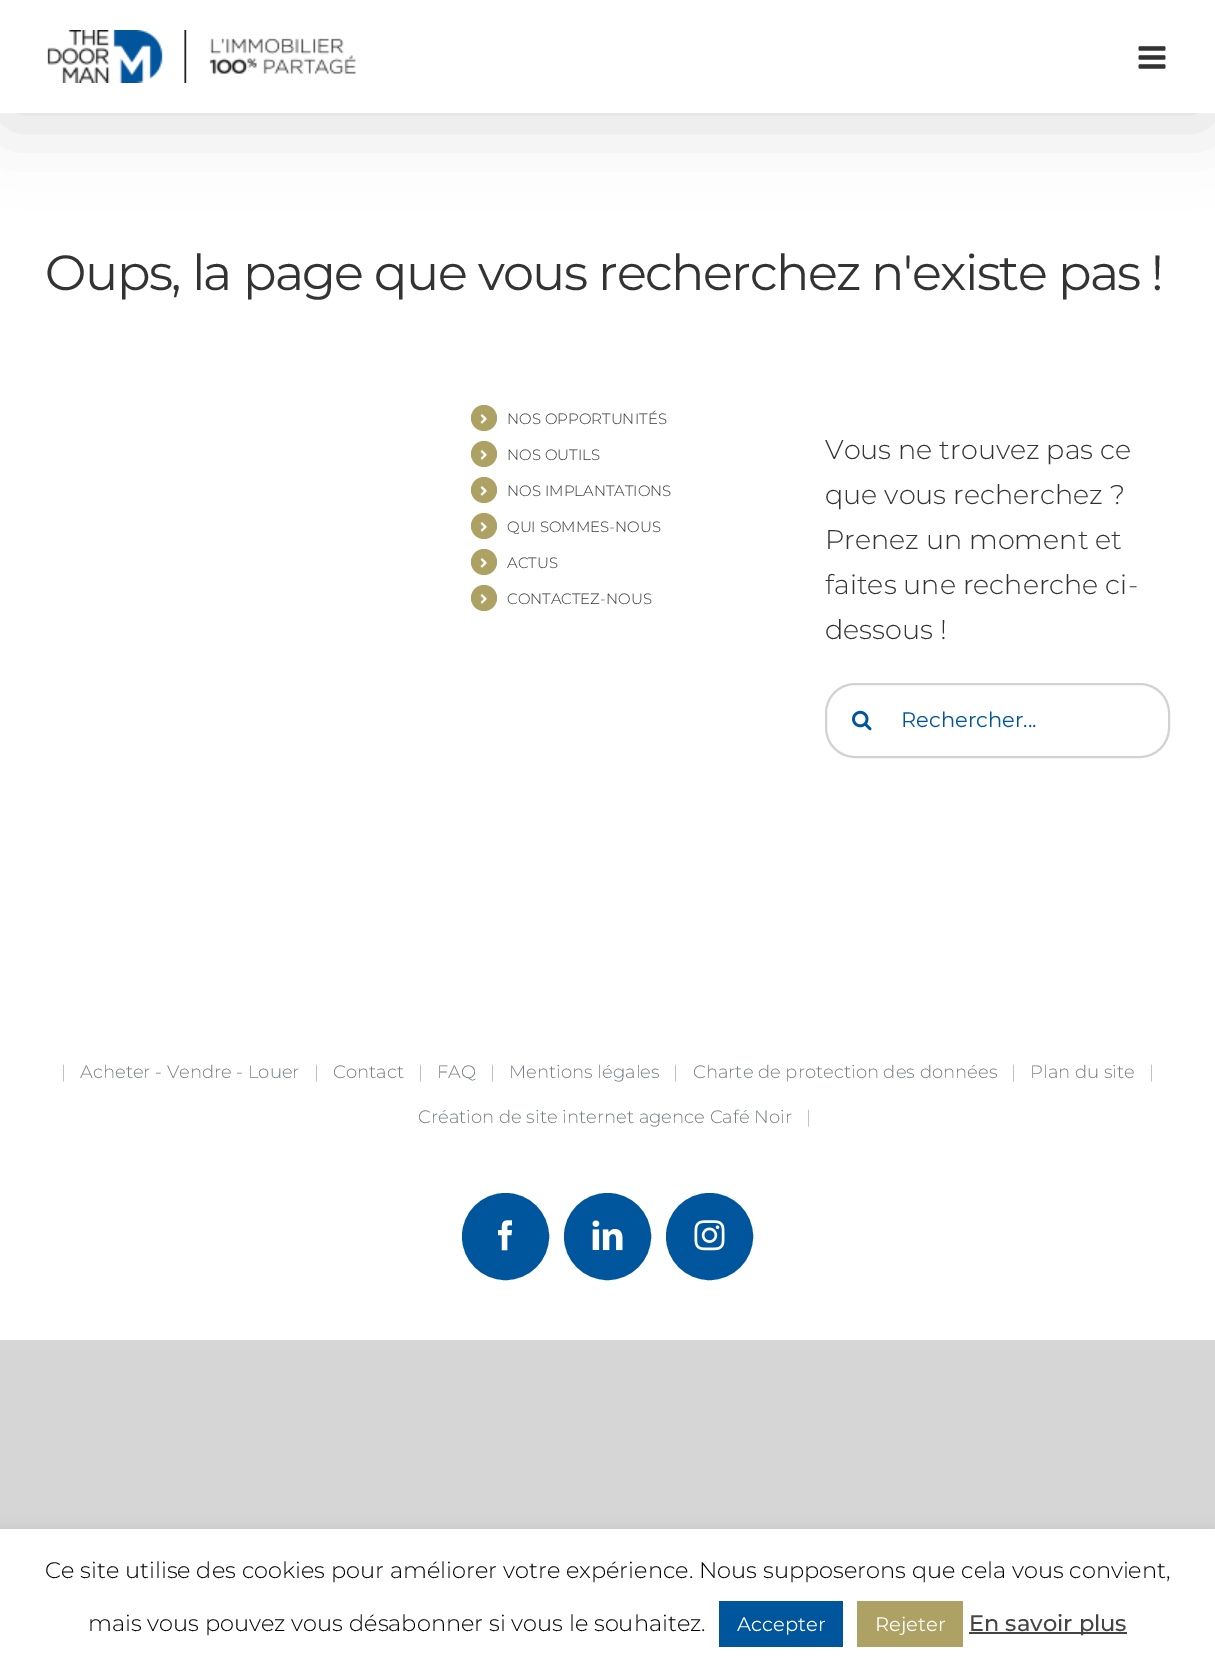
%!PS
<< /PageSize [1215 1665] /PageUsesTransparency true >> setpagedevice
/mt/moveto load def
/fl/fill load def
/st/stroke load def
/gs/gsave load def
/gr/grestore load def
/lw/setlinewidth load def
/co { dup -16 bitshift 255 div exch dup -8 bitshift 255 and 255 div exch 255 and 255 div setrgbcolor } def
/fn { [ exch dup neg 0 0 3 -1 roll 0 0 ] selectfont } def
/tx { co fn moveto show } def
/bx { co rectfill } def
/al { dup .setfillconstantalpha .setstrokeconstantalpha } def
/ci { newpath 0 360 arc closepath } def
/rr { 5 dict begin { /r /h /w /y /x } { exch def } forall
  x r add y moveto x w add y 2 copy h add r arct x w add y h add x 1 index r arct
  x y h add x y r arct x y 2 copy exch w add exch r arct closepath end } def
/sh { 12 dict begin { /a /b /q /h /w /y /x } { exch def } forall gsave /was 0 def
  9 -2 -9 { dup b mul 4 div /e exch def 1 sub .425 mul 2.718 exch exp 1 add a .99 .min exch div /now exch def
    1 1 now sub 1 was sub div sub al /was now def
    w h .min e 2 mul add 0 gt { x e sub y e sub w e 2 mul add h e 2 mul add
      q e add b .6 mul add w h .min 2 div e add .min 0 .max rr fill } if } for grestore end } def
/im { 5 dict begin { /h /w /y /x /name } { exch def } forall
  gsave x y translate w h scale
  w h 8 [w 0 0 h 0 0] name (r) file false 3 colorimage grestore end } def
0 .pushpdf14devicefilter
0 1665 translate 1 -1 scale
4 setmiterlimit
0 0 1215 1665 16#D7D6D6 bx
0 113 1215 1227 16#FFFFFF bx
16#000000 co
3 18 1209 107 0 37.5 .14 sh
0 0 1215 113 16#FFFFFF bx
(media/1.raw) 47 30 309 53 im
(media/2.raw) 1138 46 28 23 im
16#ADA164 co
484 418 13 ci fl
(media/3.raw) 480 414 7 10 im
484 454 13 ci fl
(media/3.raw) 480 450 7 10 im
484 490 13 ci fl
(media/3.raw) 480 486 7 10 im
484 526 13 ci fl
(media/3.raw) 480 522 7 10 im
484 562 13 ci fl
(media/3.raw) 480 558 7 10 im
484 598 13 ci fl
(media/3.raw) 480 594 7 10 im
16#D2D2D2 co
2 lw
826 684 343 73 29 rr st
(media/4.raw) 852 710 20 21 im
16#00569D co
505.5 1236.5 42.5 ci gs fl gr
st
(media/5.raw) 498 1220 14 31 im
607.5 1236.5 42.5 ci gs fl gr
st
(media/6.raw) 592 1220 31 31 im
709.5 1236.5 42.5 ci gs fl gr
st
(media/7.raw) 694 1220 31 31 im
16#ACABAB co
0 1527 1215 137 0 7.5 .3 sh
0 1529 1215 136 16#FFFFFF bx
719 1601 124 46 16#00569D bx
857 1601 106 46 16#ADA164 bx
969 1632 158 2 16#444444 bx
/Montserrat-Regular 49.4 fn
16#333333 co
45 290 mt -1.5 0 (Oups, la page que vous recherchez n'existe pas !) ashow
(NOS OPPORTUNITÉS) 507 424 /Montserrat-Light 15 16#333333 tx
(NOS OUTILS) 507 460 /Montserrat-Light 15 16#333333 tx
(NOS IMPLANTATIONS) 507 496 /Montserrat-Light 15 16#333333 tx
(QUI SOMMES-NOUS) 507 532 /Montserrat-Light 15 16#333333 tx
(ACTUS) 507 568 /Montserrat-Light 15 16#333333 tx
(CONTACTEZ-NOUS) 507 604 /Montserrat-Light 15 16#333333 tx
(Vous ne trouvez pas ce) 825 459 /Montserrat-Light 27 16#333333 tx
(que vous recherchez ?) 825 504 /Montserrat-Light 27 16#333333 tx
(Prenez un moment et) 825 549 /Montserrat-Light 27 16#333333 tx
(faites une recherche ci-) 825 594 /Montserrat-Light 27 16#333333 tx
(dessous !) 825 639 /Montserrat-Light 27 16#333333 tx
(Rechercher...) 901 727 /Montserrat-Regular 21 16#00569D tx
(|) 61 1078 /Montserrat-Light 18 16#A3ACB6 tx
(Acheter - Vendre - Louer) 80 1078 /Montserrat-Light 18 16#757D85 tx
(|) 314 1078 /Montserrat-Light 18 16#A3ACB6 tx
(Contact) 333 1078 /Montserrat-Light 18 16#757D85 tx
(|) 418 1078 /Montserrat-Light 18 16#A3ACB6 tx
(FAQ) 437 1078 /Montserrat-Light 18 16#757D85 tx
(|) 490 1078 /Montserrat-Light 18 16#A3ACB6 tx
(Mentions légales) 509 1078 /Montserrat-Light 18 16#757D85 tx
(|) 673 1078 /Montserrat-Light 18 16#A3ACB6 tx
(Charte de protection des données) 693 1078 /Montserrat-Light 18 16#757D85 tx
(|) 1011 1078 /Montserrat-Light 18 16#A3ACB6 tx
(Plan du site) 1030 1078 /Montserrat-Light 18 16#757D85 tx
(|) 1149 1078 /Montserrat-Light 18 16#A3ACB6 tx
(Création de site internet agence Café Noir) 418 1123 /Montserrat-Light 18 16#757D85 tx
(|) 806 1123 /Montserrat-Light 18 16#A3ACB6 tx
(Ce site utilise des cookies pour améliorer votre expérience. Nous supposerons que cela vous convient,) 45 1578 /Montserrat-Light 22.5 16#000000 tx
(mais vous pouvez vous désabonner si vous le souhaitez.) 88 1631 /Montserrat-Light 22.5 16#000000 tx
(Accepter) 737 1631 /Montserrat-Regular 19.5 16#FFFFFF tx
(Rejeter) 875 1631 /Montserrat-Regular 19.5 16#FFFFFF tx
(En savoir plus) 969 1631 /Montserrat-Medium 22.5 16#444444 tx
.poppdf14devicefilter showpage
